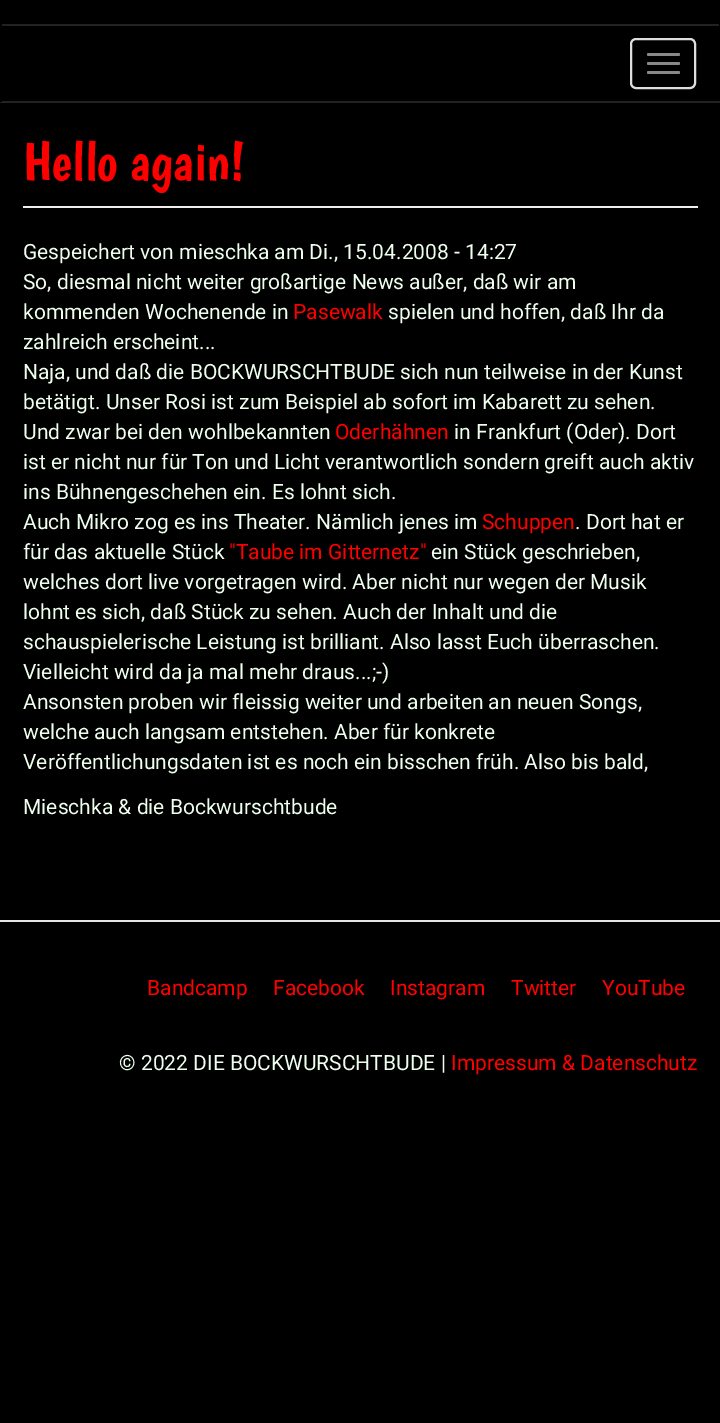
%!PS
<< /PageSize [720 1423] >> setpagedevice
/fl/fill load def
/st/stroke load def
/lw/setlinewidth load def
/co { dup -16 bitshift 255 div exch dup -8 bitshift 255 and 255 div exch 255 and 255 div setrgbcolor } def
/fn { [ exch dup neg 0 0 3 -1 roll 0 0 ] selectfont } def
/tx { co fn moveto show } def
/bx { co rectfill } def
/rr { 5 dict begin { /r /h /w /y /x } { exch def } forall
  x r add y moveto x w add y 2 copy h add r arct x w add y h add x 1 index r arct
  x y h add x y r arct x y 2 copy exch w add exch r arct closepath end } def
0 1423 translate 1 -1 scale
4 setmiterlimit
0 0 720 1423 16#000000 bx
0 24 720 2 16#222222 bx
719 24 1 2 16#000000 bx
0 101 720 2 16#222222 bx
0 24 2 78 16#000000 bx
16#DDDDDD co
2 lw
631 39 64 49 5 rr st
16#888888 co
647 53 33 3 1.5 rr fl
647 62 33 3 1.5 rr fl
647 71 33 3 1.5 rr fl
23 206 675 2 16#EEEEEE bx
0 920 720 2 16#E5E5E5 bx
(Hello again!) 23 180 /Boogaloo-Regular 54 16#FE0000 tx
(Gespeichert von mieschka am Di., 15.04.2008 - 14:27) 23 259 /Roboto-Regular 21 16#EEFFEE tx
(So, diesmal nicht weiter großartige News außer, daß wir am) 23 289 /Roboto-Regular 21 16#EEFFEE tx
(kommenden Wochenende in) 23 319 /Roboto-Regular 21 16#EEFFEE tx
(Pasewalk) 293 319 /Roboto-Regular 21 16#FE0000 tx
(spielen und hoffen, daß Ihr da) 388 319 /Roboto-Regular 21 16#EEFFEE tx
(zahlreich erscheint...) 23 349 /Roboto-Regular 21 16#EEFFEE tx
(Naja, und daß die BOCKWURSCHTBUDE sich nun teilweise in der Kunst) 23 379 /Roboto-Regular 21 16#EEFFEE tx
(betätigt. Unser Rosi ist zum Beispiel ab sofort im Kabarett zu sehen.) 23 409 /Roboto-Regular 21 16#EEFFEE tx
(Und zwar bei den wohlbekannten) 23 439 /Roboto-Regular 21 16#EEFFEE tx
(Oderhähnen) 335 439 /Roboto-Regular 21 16#FE0000 tx
(in Frankfurt \(Oder\). Dort) 454 439 /Roboto-Regular 21 16#EEFFEE tx
(ist er nicht nur für Ton und Licht verantwortlich sondern greift auch aktiv) 23 469 /Roboto-Regular 21 16#EEFFEE tx
(ins Bühnengeschehen ein. Es lohnt sich.) 23 499 /Roboto-Regular 21 16#EEFFEE tx
(Auch Mikro zog es ins Theater. Nämlich jenes im) 23 529 /Roboto-Regular 21 16#EEFFEE tx
(Schuppen) 482 529 /Roboto-Regular 21 16#FE0000 tx
(. Dort hat er) 575 529 /Roboto-Regular 21 16#EEFFEE tx
(für das aktuelle Stück) 23 559 /Roboto-Regular 21 16#EEFFEE tx
("Taube im Gitternetz") 229 559 /Roboto-Regular 21 16#FE0000 tx
(ein Stück geschrieben,) 431 559 /Roboto-Regular 21 16#EEFFEE tx
(welches dort live vorgetragen wird. Aber nicht nur wegen der Musik) 23 589 /Roboto-Regular 21 16#EEFFEE tx
(lohnt es sich, daß Stück zu sehen. Auch der Inhalt und die) 23 619 /Roboto-Regular 21 16#EEFFEE tx
(schauspielerische Leistung ist brilliant. Also lasst Euch überraschen.) 23 649 /Roboto-Regular 21 16#EEFFEE tx
(Vielleicht wird da ja mal mehr draus...;-\)) 23 679 /Roboto-Regular 21 16#EEFFEE tx
(Ansonsten proben wir fleissig weiter und arbeiten an neuen Songs,) 23 709 /Roboto-Regular 21 16#EEFFEE tx
(welche auch langsam entstehen. Aber für konkrete) 23 739 /Roboto-Regular 21 16#EEFFEE tx
(Veröffentlichungsdaten ist es noch ein bisschen früh. Also bis bald,) 23 769 /Roboto-Regular 21 16#EEFFEE tx
(Mieschka & die Bockwurschtbude) 23 814 /Roboto-Regular 21 16#EEFFEE tx
(Bandcamp) 147 995 /Roboto-Regular 21 16#FE0000 tx
(Facebook) 273 995 /Roboto-Regular 21 16#FE0000 tx
(Instagram) 390 995 /Roboto-Regular 21 16#FE0000 tx
(Twitter) 511 995 /Roboto-Regular 21 16#FE0000 tx
(YouTube) 602 995 /Roboto-Regular 21 16#FE0000 tx
(© 2022 DIE BOCKWURSCHTBUDE |) 119 1070 /Roboto-Regular 21 16#EEFFEE tx
(Impressum & Datenschutz) 451 1070 /Roboto-Regular 21 16#FE0000 tx
showpage
